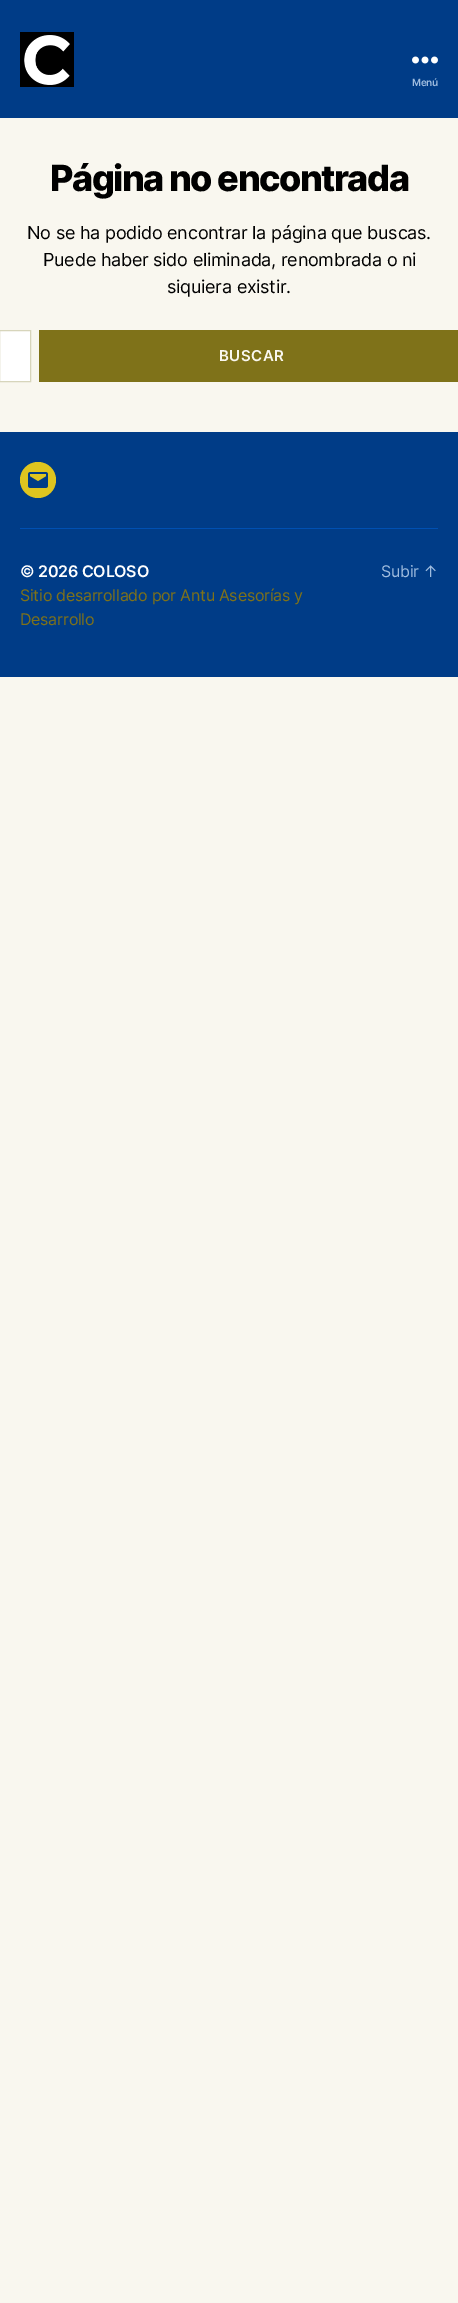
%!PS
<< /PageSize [458 2303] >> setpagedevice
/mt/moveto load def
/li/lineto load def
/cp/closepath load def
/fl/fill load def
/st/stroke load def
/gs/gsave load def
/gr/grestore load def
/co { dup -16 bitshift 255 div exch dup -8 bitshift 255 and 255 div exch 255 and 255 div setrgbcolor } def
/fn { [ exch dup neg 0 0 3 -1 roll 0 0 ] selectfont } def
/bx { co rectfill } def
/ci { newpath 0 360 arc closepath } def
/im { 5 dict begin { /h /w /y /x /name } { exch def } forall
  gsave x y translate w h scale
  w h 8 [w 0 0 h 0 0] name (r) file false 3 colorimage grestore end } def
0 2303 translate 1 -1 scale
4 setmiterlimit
0 0 458 2303 16#F9F7EF bx
0 0 458 118 16#003C87 bx
(media/1.raw) 20 32 54 55 im
(media/2.raw) 412 56 26 8 im
16#FFFFFF co
-.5 330.5 mt 30.5 330.5 li 30.5 381.5 li -.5 381.5 li cp gs fl gr
16#D7D5BB co
st
39 330 419 52 16#7F7219 bx
0 432 458 245 16#003C87 bx
20 528 418 1 16#0050B2 bx
16#DFC51F co
38 480 18 ci fl
(media/3.raw) 28 472 20 16 im
/Inter-SemiBold 10 fn
16#9FBCDF co
412 86 mt -.25 0 (Menú) ashow
/Inter-ExtraBold 36 fn
16#000000 co
50 191 mt -1.5 0 (Página no encontrada) ashow
/Inter-Regular 18 fn
27 239 mt -.25 0 (No se ha podido encontrar la página que buscas.) ashow
43 266 mt -.25 0 (Puede haber sido eliminada, renombrada o ni) ashow
167 293 mt -.25 0 (siquiera existir.) ashow
/Inter-SemiBold 15 fn
16#F9F7EF co
219 361 mt .5 0 (BUSCAR) ashow
/Inter-SemiBold 16 fn
16#FFFFFF co
20 577 mt -.25 0 (© 2026 COLOSO) ashow
/Inter-Regular 16 fn
16#7F7219 co
20 601 mt -.25 0 (Sitio desarrollado por Antu Asesorías y) ashow
20 625 mt -.25 0 (Desarrollo) ashow
16#9FBCDF co
381 577 mt -.25 0 (Subir ↑) ashow
showpage
